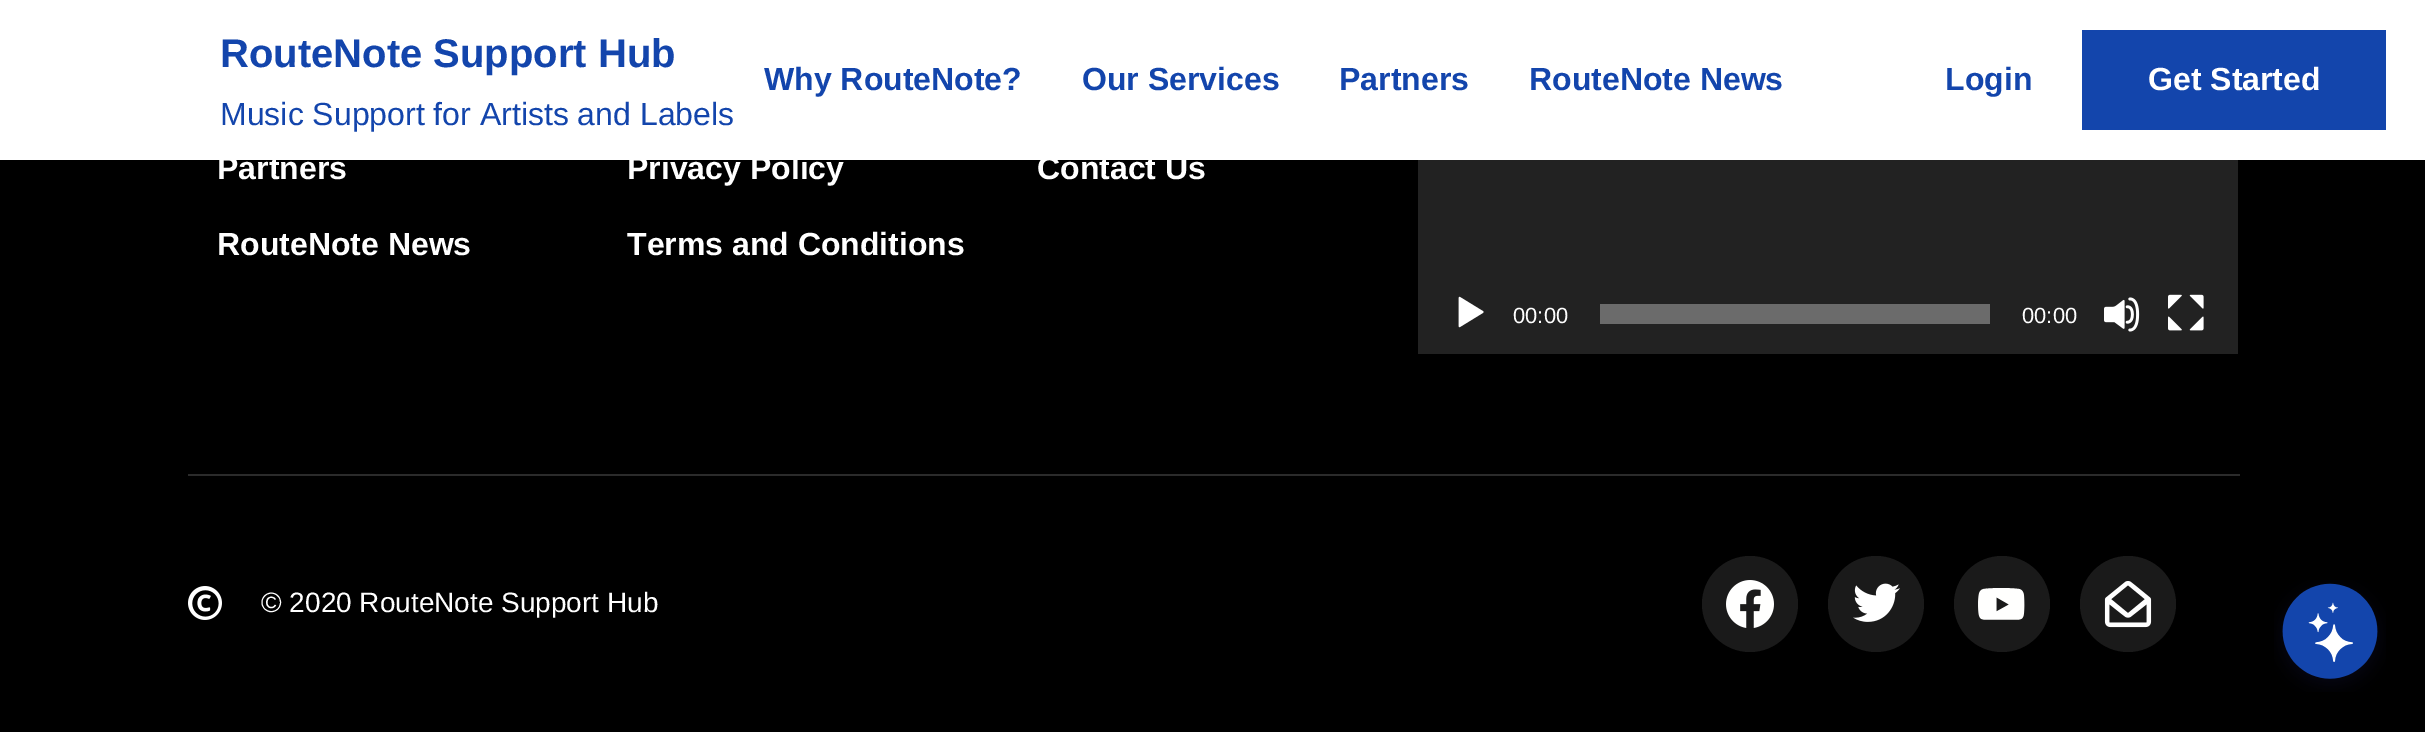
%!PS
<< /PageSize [2425 732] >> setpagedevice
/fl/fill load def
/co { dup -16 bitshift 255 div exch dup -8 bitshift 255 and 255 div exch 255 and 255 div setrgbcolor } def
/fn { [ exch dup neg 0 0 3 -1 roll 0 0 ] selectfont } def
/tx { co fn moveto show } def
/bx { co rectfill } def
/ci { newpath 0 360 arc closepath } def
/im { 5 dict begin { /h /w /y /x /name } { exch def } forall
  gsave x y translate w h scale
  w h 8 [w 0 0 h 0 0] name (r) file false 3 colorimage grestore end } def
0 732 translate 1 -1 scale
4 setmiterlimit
0 0 2425 732 16#000000 bx
0 0 2425 160 16#FFFFFF bx
2082 30 304 100 16#1345AC bx
1418 160 820 194 16#222222 bx
(media/1.raw) 1458 296 26 32 im
1600 304 390 20 16#6B6B6B bx
(media/2.raw) 2104 297 36 35 im
(media/3.raw) 2168 294 36 37 im
188 474 2052 2 16#2B2B2B bx
(media/4.raw) 188 586 34 34 im
16#1A1A1A co
1750 604 48 ci fl
(media/5.raw) 1726 580 48 48 im
1876 604 48 ci fl
(media/6.raw) 1853 583 47 39 im
2002 604 48 ci fl
(media/7.raw) 1978 588 47 32 im
2128 604 48 ci fl
(media/8.raw) 2104 581 48 47 im
(media/9.raw) 2274 580 112 112 im
(RouteNote Support Hub) 220 67 /LiberationSans-Bold 40 16#1345AC tx
(Music Support for Artists and Labels) 220 125 /LiberationSans-Regular 32 16#1345AC tx
(Why RouteNote?) 764 90 /LiberationSans-Bold 32 16#1345AC tx
(Our Services) 1082 90 /LiberationSans-Bold 32 16#1345AC tx
(Partners) 1339 90 /LiberationSans-Bold 32 16#1345AC tx
(RouteNote News) 1529 90 /LiberationSans-Bold 32 16#1345AC tx
(Login) 1945 90 /LiberationSans-Bold 32 16#1345AC tx
(Get Started) 2148 90 /LiberationSans-Bold 32 16#FFFFFF tx
(Partners) 217 179 /LiberationSans-Bold 32 16#FFFFFF tx
(RouteNote News) 217 255 /LiberationSans-Bold 32 16#FFFFFF tx
(Privacy Policy) 627 179 /LiberationSans-Bold 32 16#FFFFFF tx
(Terms and Conditions) 627 255 /LiberationSans-Bold 32 16#FFFFFF tx
(Contact Us) 1037 179 /LiberationSans-Bold 32 16#FFFFFF tx
(00:00) 1513 323 /LiberationSans-Regular 22 16#FFFFFF tx
(00:00) 2022 323 /LiberationSans-Regular 22 16#FFFFFF tx
(© 2020 RouteNote Support Hub) 261 612 /LiberationSans-Regular 28 16#FFFFFF tx
showpage
